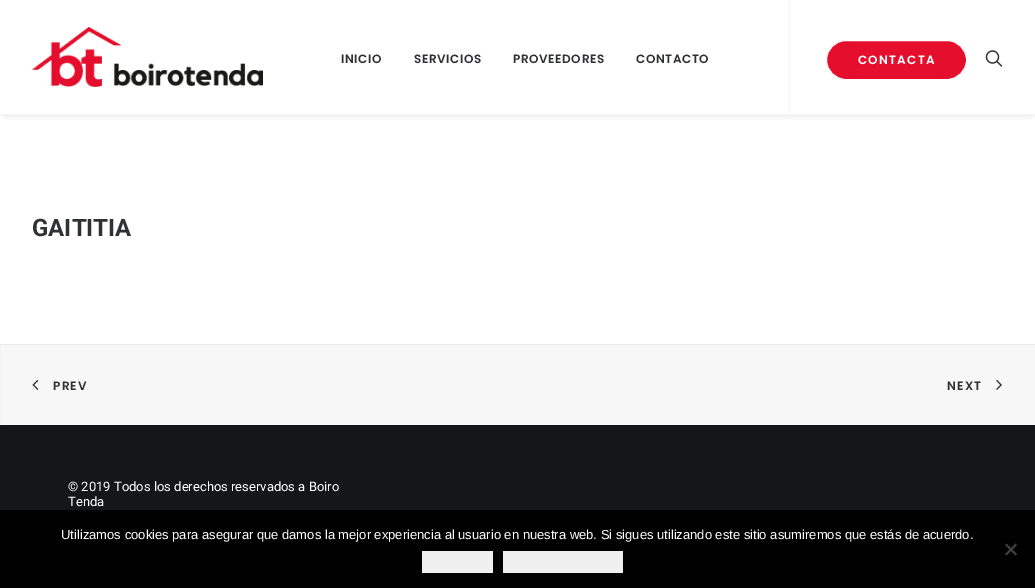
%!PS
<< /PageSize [1035 588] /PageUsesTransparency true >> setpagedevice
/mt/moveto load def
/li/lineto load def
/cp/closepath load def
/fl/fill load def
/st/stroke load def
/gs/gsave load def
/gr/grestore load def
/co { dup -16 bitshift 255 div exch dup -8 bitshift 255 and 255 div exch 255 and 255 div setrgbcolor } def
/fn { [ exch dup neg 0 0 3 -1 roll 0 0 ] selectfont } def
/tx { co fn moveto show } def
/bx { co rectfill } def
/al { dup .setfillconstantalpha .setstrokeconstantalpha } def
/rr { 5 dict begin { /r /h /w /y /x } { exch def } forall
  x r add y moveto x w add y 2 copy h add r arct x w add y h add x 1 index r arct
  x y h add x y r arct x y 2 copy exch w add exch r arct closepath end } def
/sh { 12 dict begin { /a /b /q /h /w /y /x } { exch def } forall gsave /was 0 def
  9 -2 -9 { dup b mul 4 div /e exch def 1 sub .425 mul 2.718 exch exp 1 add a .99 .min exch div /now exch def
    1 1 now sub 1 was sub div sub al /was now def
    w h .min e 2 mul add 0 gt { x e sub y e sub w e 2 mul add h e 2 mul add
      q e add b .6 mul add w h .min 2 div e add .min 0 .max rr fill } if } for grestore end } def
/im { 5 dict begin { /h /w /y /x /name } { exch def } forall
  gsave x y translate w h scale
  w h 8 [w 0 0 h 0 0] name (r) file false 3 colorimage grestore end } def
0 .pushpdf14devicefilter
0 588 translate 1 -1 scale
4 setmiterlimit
0 0 1035 588 16#FFFFFF bx
16#000000 co
6 14 1024 95 0 5 .6 sh
0 3 1035 111 16#FFFFFF bx
0 114 1035 1 16#F5F5F5 bx
(media/1.raw) 32 27 231 60 im
789 0 1 114 16#F5F5F5 bx
16#E50E2D co
826.5 40.5 140 39 19.5 rr gs fl gr
16#FFFFFF co
st
(media/2.raw) 985 50 18 17 im
16#F7F7F7 co
-.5 344.5 mt 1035.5 344.5 li 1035.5 425.5 li -.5 425.5 li cp gs fl gr
16#EAEAEA co
st
(media/3.raw) 32 379 7 11 im
(media/4.raw) 996 380 6 10 im
0 425 1035 85 16#141618 bx
0 510 1035 78 16#000000 bx
16#404040 co
1015.5 543.5 mt 1017 545 li 1006.5 555.5 li 1005 554 li cp fl
1005 545 mt 1006.5 543.5 li 1017 554 li 1015.5 555.5 li cp fl
422 551 71 22 16#EFEFEF bx
503 551 120 22 16#EFEFEF bx
/Poppins-SemiBold 12 fn
16#303133 co
341 63 mt .6 0 (INICIO) ashow
414 63 mt .6 0 (SERVICIOS) ashow
513 63 mt .6 0 (PROVEEDORES) ashow
636 63 mt .6 0 (CONTACTO) ashow
16#FFFFFF co
858 64 mt 1.25 0 (CONTACTA) ashow
(GAITITIA) 32 236 /Roboto-Bold 24 16#303133 tx
/Poppins-SemiBold 12 fn
53 390 mt 1.25 0 (PREV) ashow
947 390 mt 1.25 0 (NEXT) ashow
(© 2019 Todos los derechos reservados a Boiro) 68 491 /Roboto-Regular 13 16#FFFFFF tx
(Tenda) 68 506 /Roboto-Regular 13 16#FFFFFF tx
(Utilizamos cookies para asegurar que damos la mejor experiencia al usuario en nuestra web. Si sigues utilizando este sitio asumiremos que estás de acuerdo.) 61 539 /LiberationSans-Regular 13 16#FFFFFF tx
.poppdf14devicefilter showpage
